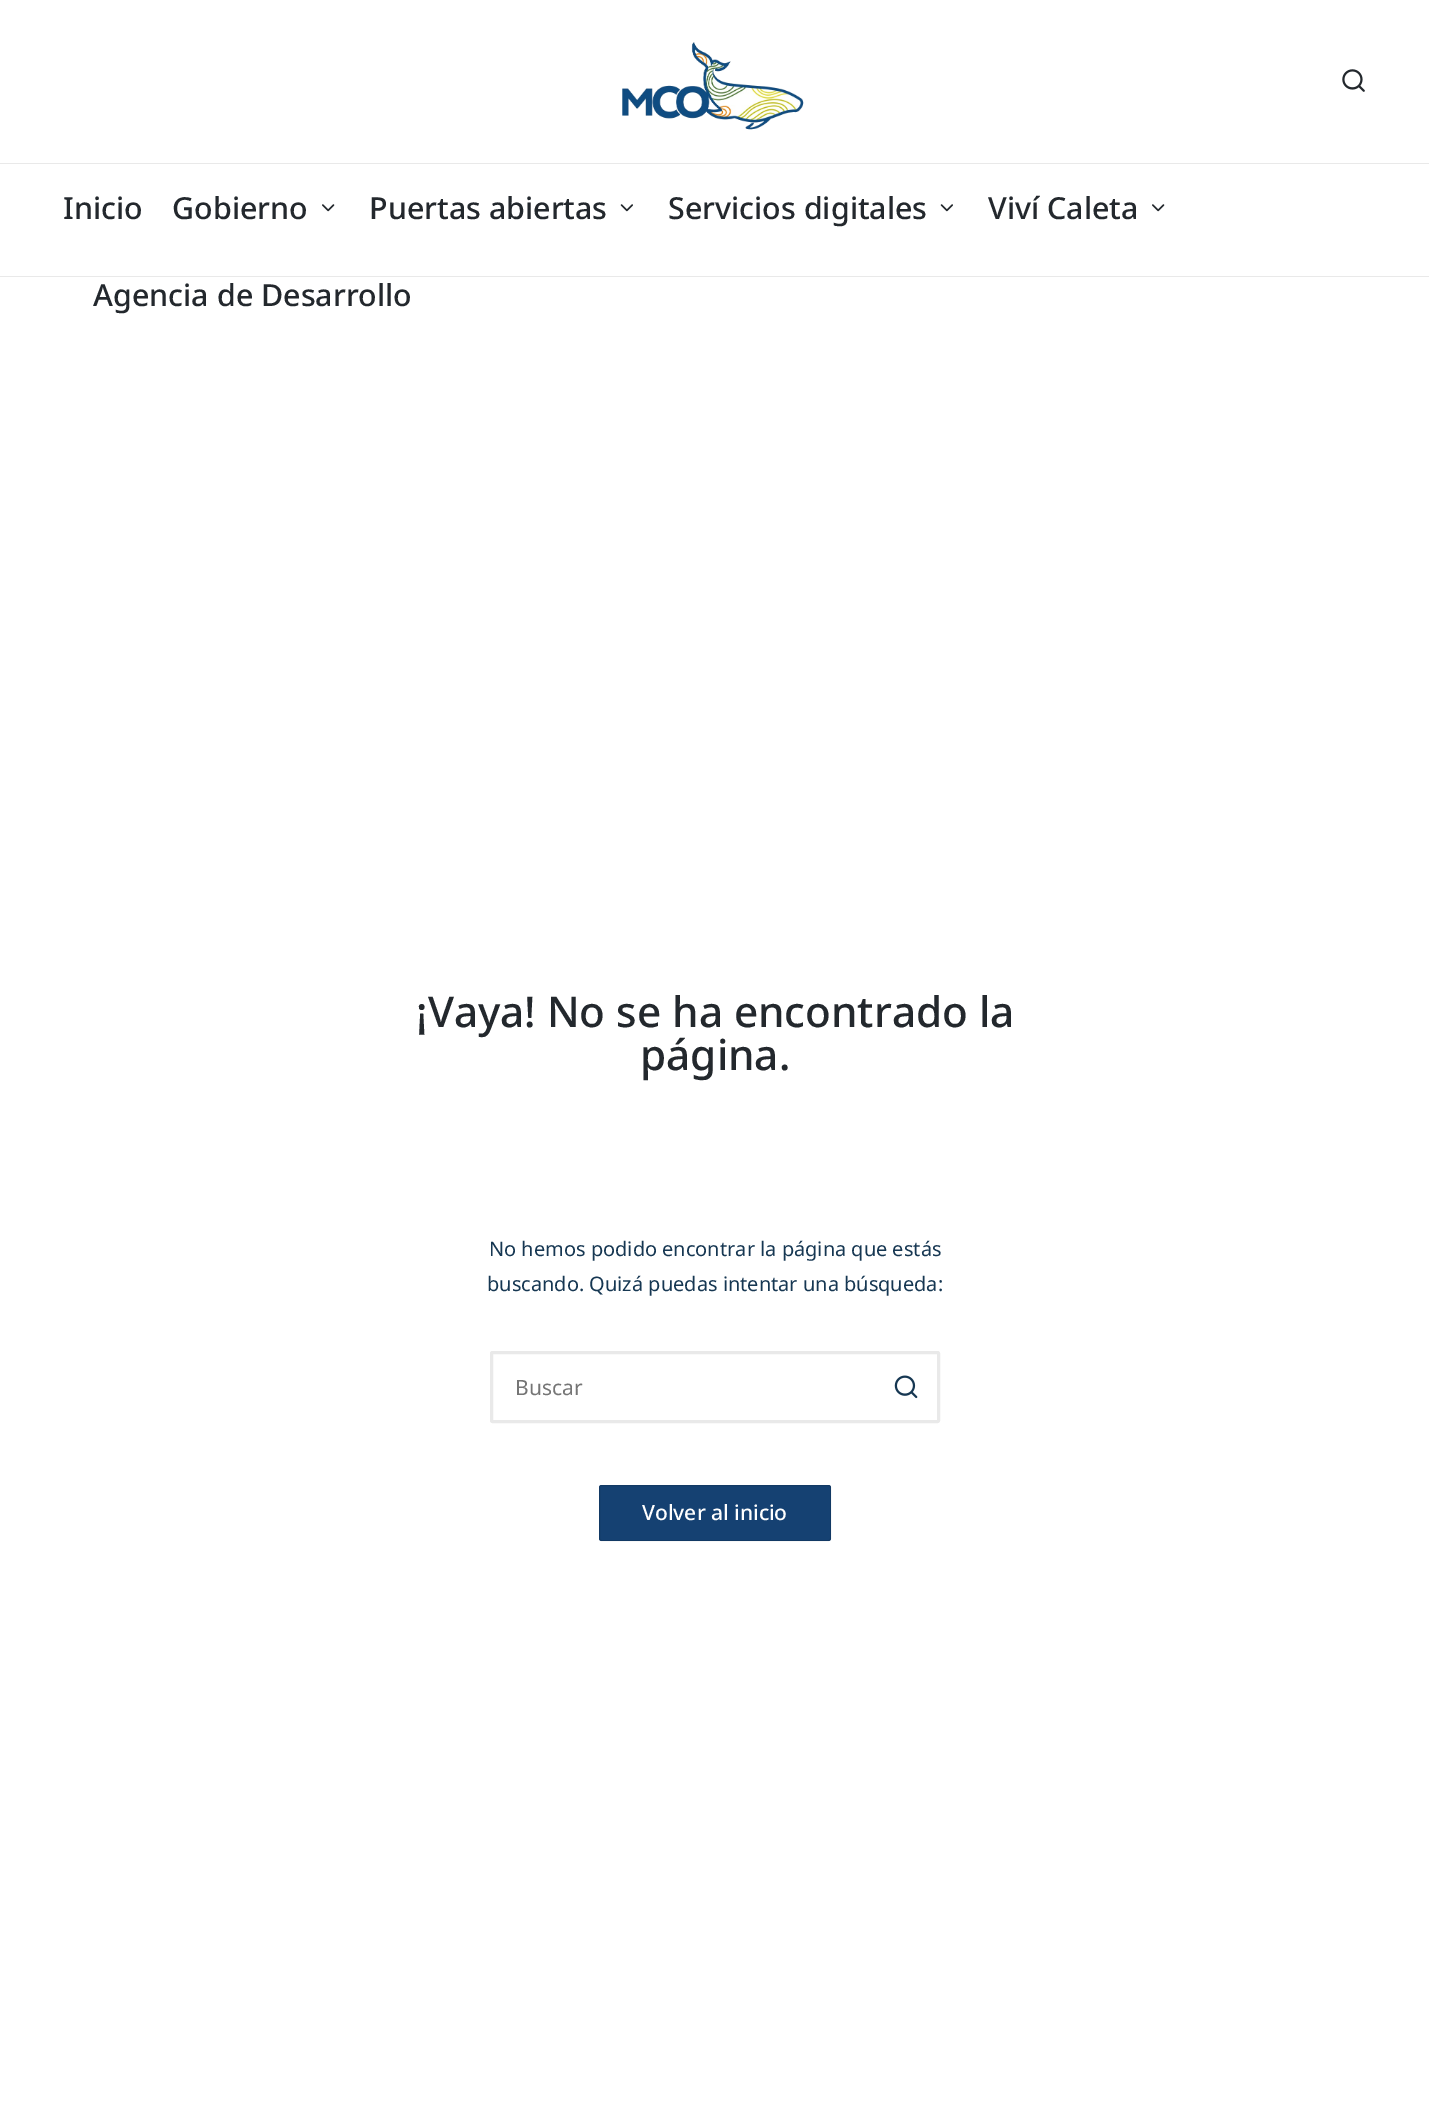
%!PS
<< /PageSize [1429 2105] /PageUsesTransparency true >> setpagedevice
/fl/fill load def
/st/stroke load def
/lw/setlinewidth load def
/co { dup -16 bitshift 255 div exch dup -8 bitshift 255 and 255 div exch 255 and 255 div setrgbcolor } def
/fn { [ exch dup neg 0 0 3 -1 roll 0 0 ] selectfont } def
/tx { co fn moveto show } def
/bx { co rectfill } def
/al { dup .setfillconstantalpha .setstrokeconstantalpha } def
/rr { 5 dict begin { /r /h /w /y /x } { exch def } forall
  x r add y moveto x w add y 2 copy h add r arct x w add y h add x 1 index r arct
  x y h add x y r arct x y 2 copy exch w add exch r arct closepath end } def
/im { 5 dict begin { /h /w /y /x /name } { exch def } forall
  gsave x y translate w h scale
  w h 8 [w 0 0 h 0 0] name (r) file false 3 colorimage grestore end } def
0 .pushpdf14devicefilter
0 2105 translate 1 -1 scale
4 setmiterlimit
0 0 1429 2105 16#FFFFFF bx
(media/1.raw) 622 42 182 88 im
(media/2.raw) 1342 69 23 23 im
0 163 1429 1 16#E9E9E9 bx
0 276 1429 1 16#E9E9E9 bx
(media/3.raw) 322 204 13 8 im
(media/4.raw) 620 204 13 8 im
(media/4.raw) 940 204 13 8 im
(media/3.raw) 1152 204 13 8 im
3 lw
491.5 1352.5 447 69 1 rr st
(media/5.raw) 894 1375 24 24 im
16#154172 co
599 1485 232 56 2.5 rr fl
0.12 al
16#000000 co
1 lw
599.5 1485.5 231 55 2 rr st
1 al
(Inicio) 63 219 /NotoSans-Medium 30.4 16#23282D tx
(Gobierno) 172 219 /NotoSans-Medium 30.4 16#23282D tx
(Puertas abiertas) 369 219 /NotoSans-Medium 30.4 16#23282D tx
(Servicios digitales) 668 219 /NotoSans-Medium 30.4 16#23282D tx
(Viví Caleta) 988 219 /NotoSans-Medium 30.4 16#23282D tx
(Agencia de Desarrollo) 93 306 /NotoSans-Medium 30.4 16#23282D tx
(¡Vaya! No se ha encontrado la) 416 1027 /NotoSans-Medium 42.25 16#23282D tx
(página.) 640 1070 /NotoSans-Medium 42.25 16#23282D tx
(No hemos podido encontrar la página que estás) 489 1256 /NotoSans-Regular 20 16#163752 tx
(buscando. Quizá puedas intentar una búsqueda:) 487 1291 /NotoSans-Regular 20 16#163752 tx
(Buscar) 515 1395 /NotoSans-Regular 21 16#757575 tx
(Volver al inicio) 642 1520 /NotoSans-Medium 21 16#FFFFFF tx
.poppdf14devicefilter showpage
